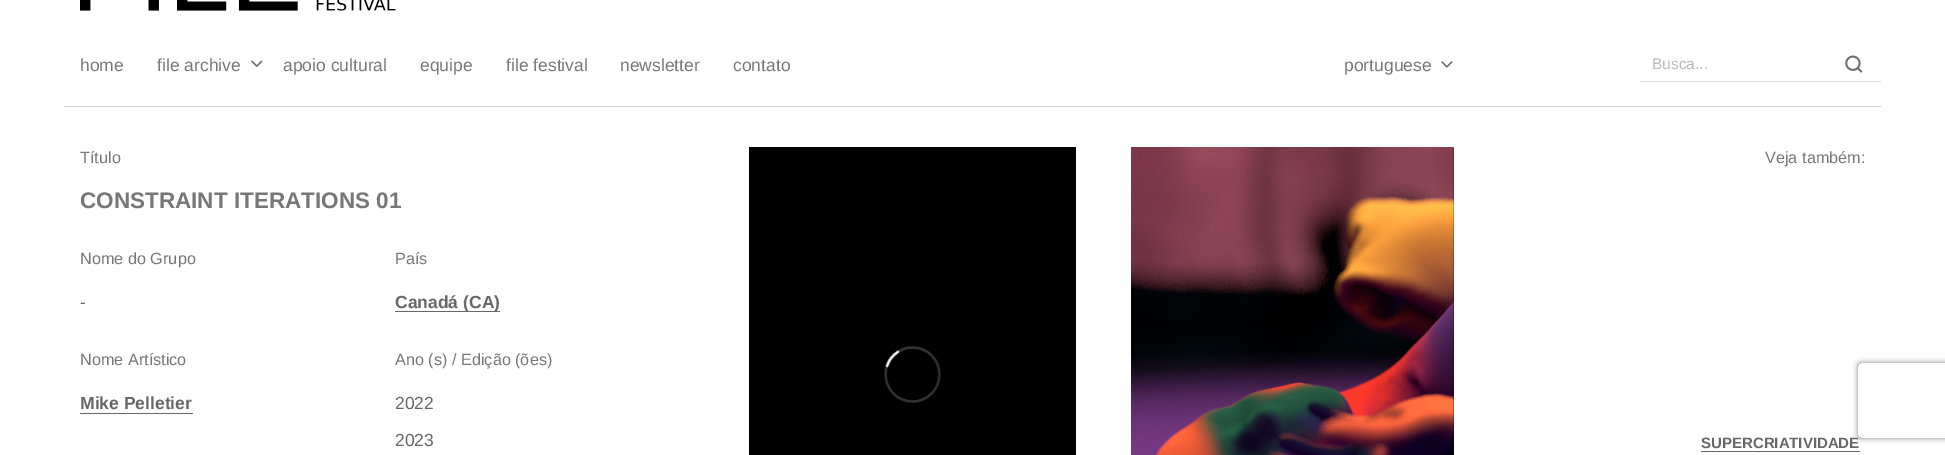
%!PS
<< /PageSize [1945 455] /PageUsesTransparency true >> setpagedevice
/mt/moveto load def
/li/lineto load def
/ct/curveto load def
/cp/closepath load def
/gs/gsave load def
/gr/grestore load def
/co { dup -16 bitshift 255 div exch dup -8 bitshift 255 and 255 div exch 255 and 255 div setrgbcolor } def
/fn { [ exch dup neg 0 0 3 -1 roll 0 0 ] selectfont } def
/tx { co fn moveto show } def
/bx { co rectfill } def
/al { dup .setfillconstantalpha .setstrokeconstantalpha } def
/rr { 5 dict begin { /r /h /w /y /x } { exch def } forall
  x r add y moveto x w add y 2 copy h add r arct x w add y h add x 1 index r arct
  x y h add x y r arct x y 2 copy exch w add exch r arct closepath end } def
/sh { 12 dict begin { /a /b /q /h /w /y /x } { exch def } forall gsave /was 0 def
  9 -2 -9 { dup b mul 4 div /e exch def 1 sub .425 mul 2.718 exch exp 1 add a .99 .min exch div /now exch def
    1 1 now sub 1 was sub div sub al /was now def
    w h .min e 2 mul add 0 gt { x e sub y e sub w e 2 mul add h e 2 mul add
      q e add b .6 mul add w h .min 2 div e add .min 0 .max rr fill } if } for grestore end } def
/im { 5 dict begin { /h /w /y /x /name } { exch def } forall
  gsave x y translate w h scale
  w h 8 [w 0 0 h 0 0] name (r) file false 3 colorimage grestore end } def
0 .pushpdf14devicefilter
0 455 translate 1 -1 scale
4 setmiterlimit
0 0 1945 455 16#FFFFFF bx
(media/1.raw) 80 0 316 11 im
64 106 1817 1 16#CCCCCC bx
(media/2.raw) 251 60 12 7 im
(media/3.raw) 1441 61 12 7 im
1640 81 241 1 16#DBDBDB bx
(media/4.raw) 1845 55 18 18 im
395 311 105 1 16#676767 bx
80 413 113 1 16#676767 bx
(media/5.raw) 749 147 327 308 im
(media/6.raw) 1131 147 323 308 im
1701 451 159 1 16#676767 bx
gs
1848 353 mt 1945 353 li 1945 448 li 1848 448 li cp 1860.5 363 mt 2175.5 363 li 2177 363 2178 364 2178 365.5 ct 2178 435.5 li 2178 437 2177 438 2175.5 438 ct 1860.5 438 li 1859 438 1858 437 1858 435.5 ct 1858 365.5 li 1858 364 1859 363 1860.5 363 ct cp eoclip newpath
16#808080 co
1858 363 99 75 2.5 3 1 sh
gr
(home) 80 71 /LiberationSans-Regular 17.5 16#777777 tx
(file archive) 157 71 /LiberationSans-Regular 17.5 16#777777 tx
(apoio cultural) 283 71 /LiberationSans-Regular 17.5 16#777777 tx
(equipe) 420 71 /LiberationSans-Regular 17.5 16#777777 tx
(file festival) 506 71 /LiberationSans-Regular 17.5 16#777777 tx
(newsletter) 620 71 /LiberationSans-Regular 17.5 16#777777 tx
(contato) 733 71 /LiberationSans-Regular 17.5 16#777777 tx
(portuguese) 1344 71 /LiberationSans-Regular 17.5 16#777777 tx
(Busca...) 1652 69 /LiberationSans-Regular 15.5 16#BABABA tx
(Título) 80 163 /LiberationSans-Regular 16.25 16#777777 tx
(CONSTRAINT ITERATIONS 01) 80 208 /LiberationSans-Bold 22.5 16#777777 tx
(Nome do Grupo) 80 264 /LiberationSans-Regular 16.25 16#777777 tx
(-) 80 308 /LiberationSans-Regular 17.5 16#676767 tx
(País) 395 264 /LiberationSans-Regular 16.25 16#777777 tx
(Canadá \(CA\)) 395 308 /LiberationSans-Bold 17.5 16#676767 tx
(Nome Artístico) 80 365 /LiberationSans-Regular 16.25 16#777777 tx
(Mike Pelletier) 80 409 /LiberationSans-Bold 17.5 16#676767 tx
(Ano \(s\) / Edição \(ões\)) 395 365 /LiberationSans-Regular 16.25 16#777777 tx
(2022) 395 409 /LiberationSans-Regular 17.5 16#676767 tx
(2023) 395 446 /LiberationSans-Regular 17.5 16#676767 tx
(Veja também:) 1765 163 /LiberationSans-Regular 16.25 16#777777 tx
(SUPERCRIATIVIDADE) 1701 448 /LiberationSans-Bold 15 16#676767 tx
.poppdf14devicefilter showpage
